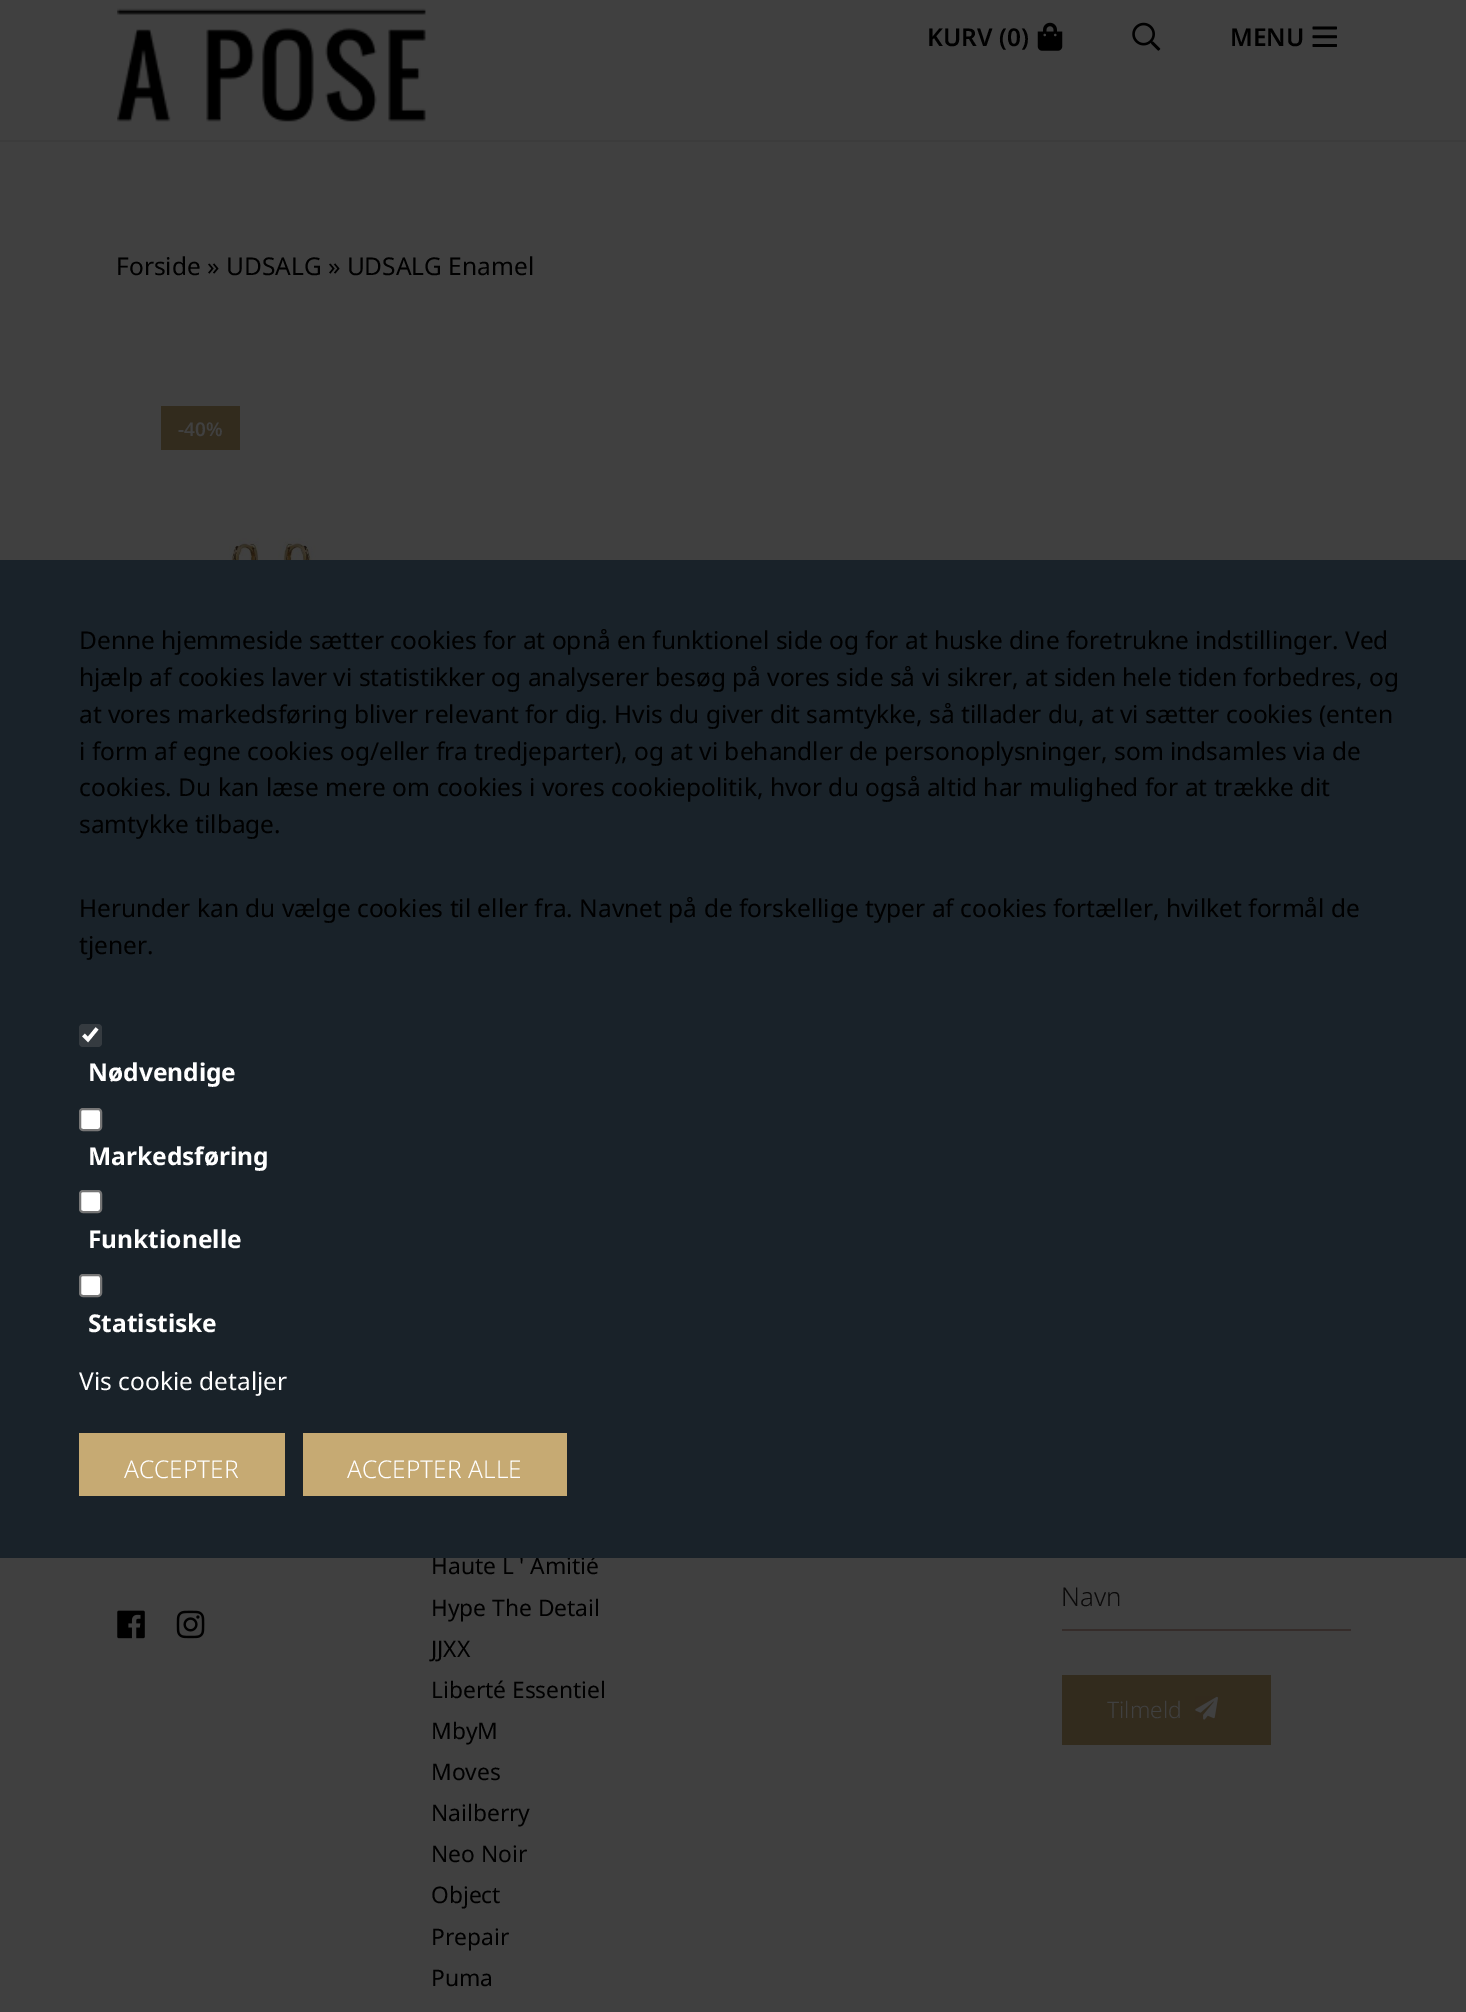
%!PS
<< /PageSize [1466 2012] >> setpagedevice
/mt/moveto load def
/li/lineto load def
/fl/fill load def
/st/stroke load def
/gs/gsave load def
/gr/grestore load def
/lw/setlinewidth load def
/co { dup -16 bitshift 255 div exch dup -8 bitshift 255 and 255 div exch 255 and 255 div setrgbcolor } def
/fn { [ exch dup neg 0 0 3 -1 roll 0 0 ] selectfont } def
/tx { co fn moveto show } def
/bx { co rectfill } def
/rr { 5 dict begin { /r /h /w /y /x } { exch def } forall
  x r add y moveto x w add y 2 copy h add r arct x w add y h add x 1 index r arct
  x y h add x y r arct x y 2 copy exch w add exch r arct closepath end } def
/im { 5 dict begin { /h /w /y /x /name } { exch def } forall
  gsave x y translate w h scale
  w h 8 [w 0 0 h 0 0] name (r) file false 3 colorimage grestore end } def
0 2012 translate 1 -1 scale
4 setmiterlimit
0 0 1466 2012 16#404040 bx
0 140 1466 2 16#3C3C3C bx
(media/1.raw) 117 8 309 114 im
(media/2.raw) 1037 22 26 29 im
(media/3.raw) 1132 22 29 29 im
(media/4.raw) 1312 26 25 21 im
161 406 79 44 16#322B1D bx
(media/5.raw) 229 538 87 22 im
(media/6.raw) 117 1610 28 29 im
(media/7.raw) 176 1610 29 29 im
1062 1629 289 2 16#352C2A bx
1062 1675 209 70 16#322B1D bx
(media/8.raw) 1195 1696 23 24 im
(KURV \(0\)) 927 46 /NotoSans-SemiBold 24.5 16#000000 tx
(MENU) 1230 46 /NotoSans-SemiBold 24.5 16#000000 tx
(Forside » UDSALG » UDSALG Enamel) 116 275 /NotoSans-Regular 24.5 16#000000 tx
(-40%) 178 436 /NotoSans-SemiBold 19 16#404040 tx
(Haute L ' Amitié) 431 1574 /NotoSans-Regular 22.75 16#000000 tx
(Hype The Detail) 431 1616 /NotoSans-Regular 22.75 16#000000 tx
(JJXX) 431 1657 /NotoSans-Regular 22.75 16#000000 tx
(Liberté Essentiel) 431 1698 /NotoSans-Regular 22.75 16#000000 tx
(MbyM) 431 1739 /NotoSans-Regular 22.75 16#000000 tx
(Moves) 431 1780 /NotoSans-Regular 22.75 16#000000 tx
(Nailberry) 431 1821 /NotoSans-Regular 22.75 16#000000 tx
(Neo Noir) 431 1862 /NotoSans-Regular 22.75 16#000000 tx
(Object) 431 1903 /NotoSans-Regular 22.75 16#000000 tx
(Prepair) 431 1945 /NotoSans-Regular 22.75 16#000000 tx
(Puma) 431 1986 /NotoSans-Regular 22.75 16#000000 tx
(Navn) 1061 1606 /NotoSans-Light 26 16#0B0A0A tx
(Tilmeld) 1107 1718 /NotoSans-Light 22.75 16#404040 tx
0 560 1466 998 16#192229 bx
(Denne hjemmeside sætter cookies for at opnå en funktionel side og for at huske dine foretrukne indstillinger. Ved) 79 649 /NotoSans-Regular 24.5 16#000000 tx
(hjælp af cookies laver vi statistikker og analyserer besøg på vores side så vi sikrer, at siden hele tiden forbedres, og) 79 686 /NotoSans-Regular 24.5 16#000000 tx
(at vores markedsføring bliver relevant for dig. Hvis du giver dit samtykke, så tillader du, at vi sætter cookies \(enten) 79 723 /NotoSans-Regular 24.5 16#000000 tx
(i form af egne cookies og/eller fra tredjeparter\), og at vi behandler de personoplysninger, som indsamles via de) 79 760 /NotoSans-Regular 24.5 16#000000 tx
(cookies. Du kan læse mere om cookies i vores cookiepolitik, hvor du også altid har mulighed for at trække dit) 79 796 /NotoSans-Regular 24.5 16#000000 tx
(samtykke tilbage.) 79 833 /NotoSans-Regular 24.5 16#000000 tx
(Herunder kan du vælge cookies til eller fra. Navnet på de forskellige typer af cookies fortæller, hvilket formål de) 79 917 /NotoSans-Regular 24.5 16#000000 tx
(tjener.) 79 954 /NotoSans-Regular 24.5 16#000000 tx
16#353B40 co
79 1024 23 23 4 rr fl
16#FFFFFF co
3.6 lw
83.5 1035 mt 88 1039.5 li 97 1028.5 li st
(Nødvendige) 88 1081 /NotoSans-Bold 24.5 16#FFFFFF tx
80 1109 21 21 3 rr gs fl gr
16#767676 co
2 lw
st
(Markedsføring) 88 1165 /NotoSans-Bold 24.5 16#FFFFFF tx
80 1191 21 21 3 rr gs fl gr
16#767676 co
st
(Funktionelle) 88 1248 /NotoSans-Bold 24.5 16#FFFFFF tx
80 1275 21 21 3 rr gs fl gr
16#767676 co
st
(Statistiske) 88 1332 /NotoSans-Bold 24.5 16#FFFFFF tx
(Vis cookie detaljer) 79 1390 /NotoSans-Regular 24.5 16#FFFFFF tx
79 1433 206 63 16#C6AA73 bx
(ACCEPTER) 124 1478 /NotoSans-Light 24.5 16#FFFFFF tx
303 1433 264 63 16#C6AA73 bx
(ACCEPTER ALLE) 347 1478 /NotoSans-Light 24.5 16#FFFFFF tx
showpage
